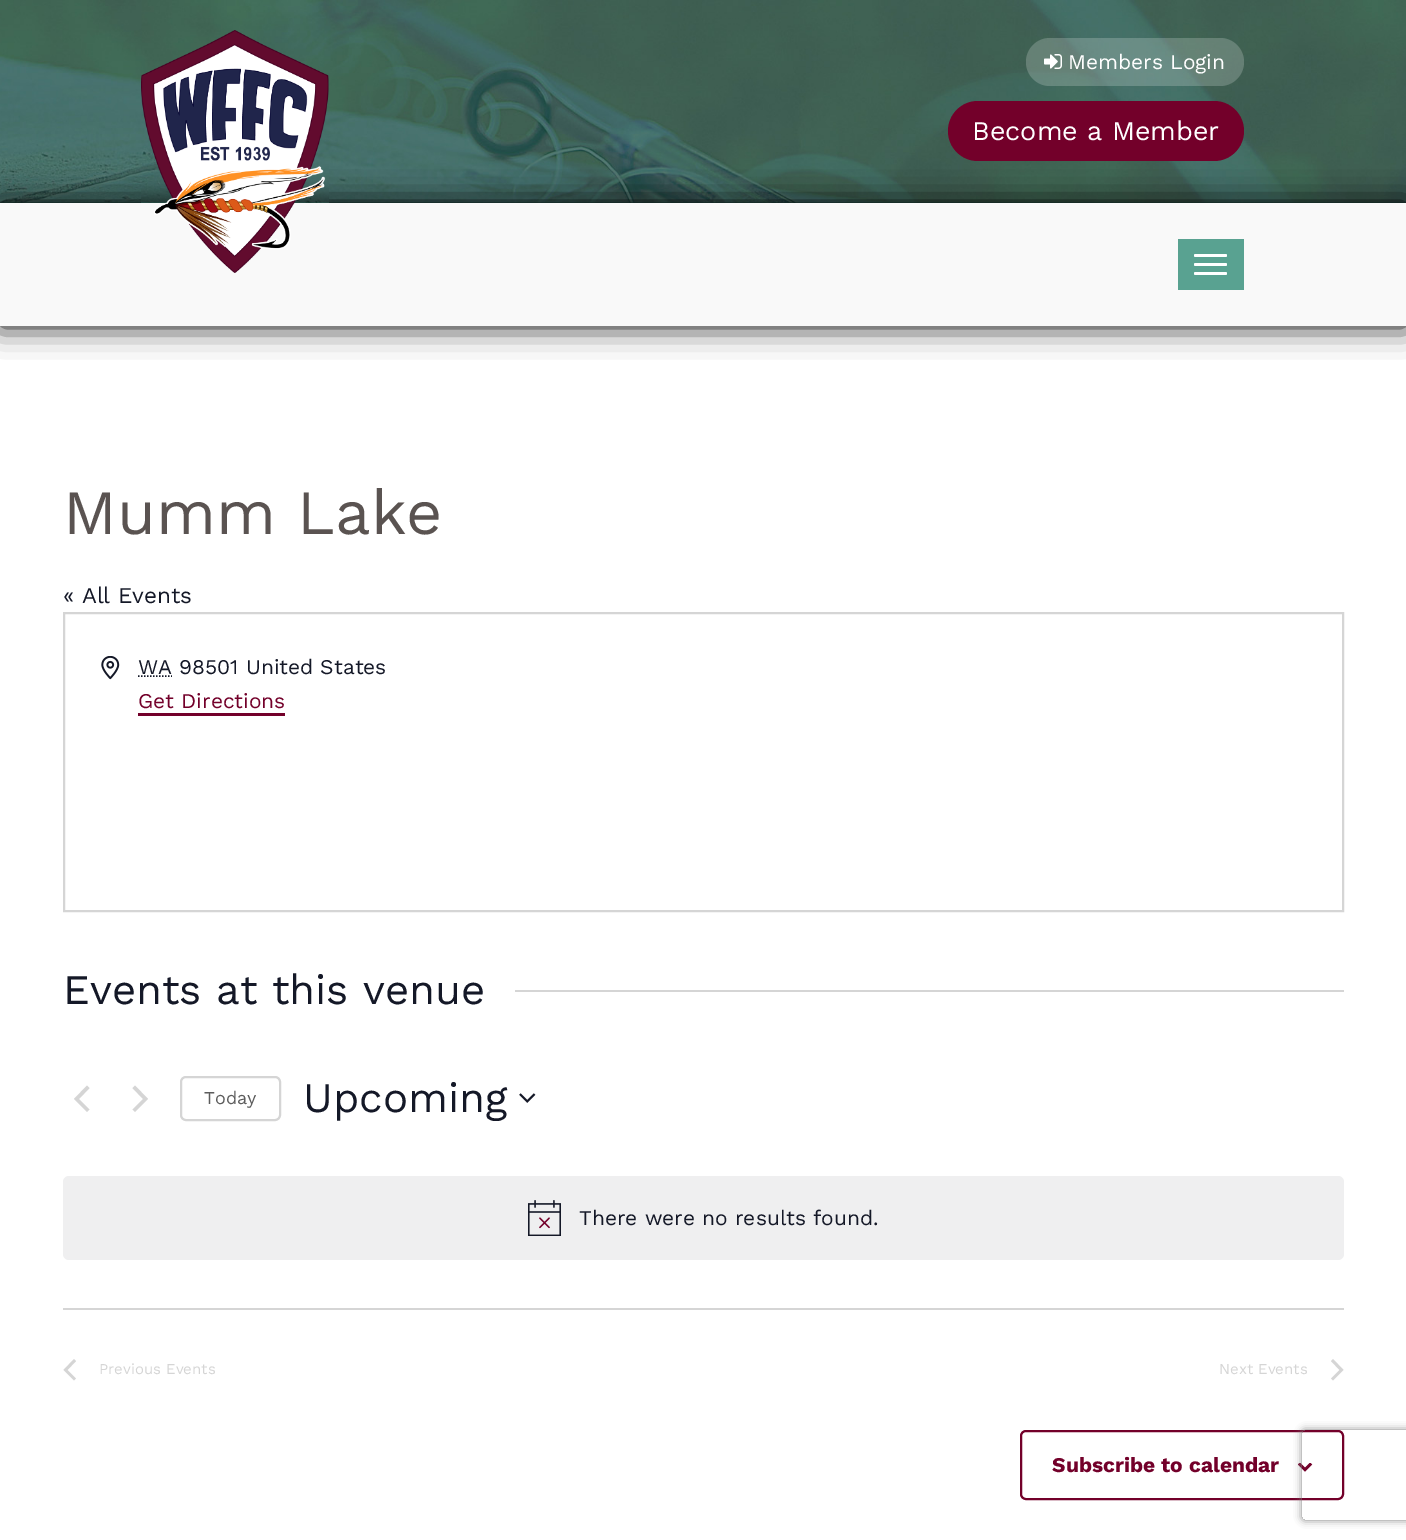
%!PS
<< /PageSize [1406 1540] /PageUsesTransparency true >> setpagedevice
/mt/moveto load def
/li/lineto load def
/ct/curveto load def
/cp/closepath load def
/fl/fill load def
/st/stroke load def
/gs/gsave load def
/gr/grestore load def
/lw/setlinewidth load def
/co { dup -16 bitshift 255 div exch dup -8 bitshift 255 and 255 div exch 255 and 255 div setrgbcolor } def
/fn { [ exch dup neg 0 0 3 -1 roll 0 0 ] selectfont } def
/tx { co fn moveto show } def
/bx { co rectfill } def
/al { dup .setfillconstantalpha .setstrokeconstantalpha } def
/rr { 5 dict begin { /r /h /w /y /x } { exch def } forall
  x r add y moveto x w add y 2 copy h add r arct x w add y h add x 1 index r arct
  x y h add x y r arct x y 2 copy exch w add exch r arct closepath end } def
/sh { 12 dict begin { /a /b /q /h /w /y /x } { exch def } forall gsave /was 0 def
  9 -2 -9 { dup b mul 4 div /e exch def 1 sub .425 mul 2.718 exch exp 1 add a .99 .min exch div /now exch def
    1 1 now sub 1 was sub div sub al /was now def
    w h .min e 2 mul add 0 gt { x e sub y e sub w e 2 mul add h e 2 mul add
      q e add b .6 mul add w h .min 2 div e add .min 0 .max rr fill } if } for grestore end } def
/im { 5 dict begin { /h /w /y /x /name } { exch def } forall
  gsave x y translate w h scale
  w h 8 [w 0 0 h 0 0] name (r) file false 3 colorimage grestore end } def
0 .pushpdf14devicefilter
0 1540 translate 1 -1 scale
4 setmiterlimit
0 0 1406 1540 16#FFFFFF bx
0 202 1406 1 16#1E4E43 bx
(media/1.raw) 0 0 1406 203 im
16#000000 co
0 203 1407 123 0 15 1 sh
0 203 1406 123 16#F9F9F9 bx
(media/2.raw) 141 30 188 243 im
0.2 al
16#FFFFFF co
1026 38 218 48 24 rr fl
1 al
(media/3.raw) 1044 54 18 15 im
16#73002A co
948 101 296 60 30 rr fl
1178 239 66 51 16#59A291 bx
16#FFFFFF co
1194 254 33 3 1.5 rr fl
1194 263 33 3 1.5 rr fl
1194 272 33 3 1.5 rr fl
16#D5D5D5 co
2 lw
64 613 1279 298 rectstroke
(media/4.raw) 101 656 19 24 im
16#141827 co
1.5 lw
[1.5 1.5] 0 setdash
138 676 mt 172 676 li st
138 713 147 3 16#73002A bx
515 990 829 2 16#D5D5D5 bx
89.5 1109.5 mt 87 1112 li 74 1099 li 87 1085.5 li 89.5 1088 li 79 1099 li cp fl
132.5 1088 mt 135 1085.5 li 148 1099 li 135 1112 li 132.5 1109.5 li 143 1099 li cp fl
2 lw
[] 0 setdash
181 1077 99 43 5 rr st
(media/5.raw) 519 1093 17 10 im
16#EFEFF0 co
63 1176 1281 84 6 rr fl
(media/6.raw) 528 1200 33 36 im
63 1308 1281 2 16#D5D5D5 bx
76 1378.5 mt 74 1380.5 li 63.5 1370 li 74 1359 li 76 1361 li 67.5 1370 li cp fl
1331 1361 mt 1333 1359 li 1343.5 1370 li 1333 1380.5 li 1331 1378.5 li 1339.5 1370 li cp fl
16#73002A co
1021 1431 322 68 5 rr st
(media/7.raw) 1298 1463 15 9 im
gs
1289 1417 mt 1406 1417 li 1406 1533 li 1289 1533 li cp 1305 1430 mt 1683 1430 li 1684.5 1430 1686 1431.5 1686 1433 ct 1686 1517 li 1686 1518.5 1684.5 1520 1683 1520 ct 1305 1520 li 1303.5 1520 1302 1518.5 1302 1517 ct 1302 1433 li 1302 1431.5 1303.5 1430 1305 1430 ct cp eoclip newpath
16#808080 co
1302 1430 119 90 3 4 1 sh
gr
(Members Login) 1068 69 /WorkSans-Regular 21 16#FFFFFF tx
(Become a Member) 972 140 /WorkSans-Regular 27 16#FFFFFF tx
(Mumm Lake) 63 534 /WorkSans-Regular 63 16#5A5351 tx
(« All Events) 63 603 /WorkSans-Regular 22.5 16#141827 tx
(WA 98501 United States) 138 674 /WorkSans-Regular 21 16#141827 tx
(Get Directions) 138 708 /WorkSans-Regular 21 16#73002A tx
(Events at this venue) 63 1004 /WorkSans-Regular 42 16#141827 tx
(Today) 204 1104 /WorkSans-Regular 18 16#5D5D5D tx
(Upcoming) 303 1112 /WorkSans-Regular 42 16#141827 tx
(There were no results found.) 579 1225 /WorkSans-Regular 21 16#141827 tx
(Previous Events) 99 1374 /WorkSans-Regular 15 16#D5D5D5 tx
(Next Events) 1219 1374 /WorkSans-Regular 15 16#D5D5D5 tx
(Subscribe to calendar) 1052 1472 /WorkSans-Bold 21 16#73002A tx
.poppdf14devicefilter showpage
